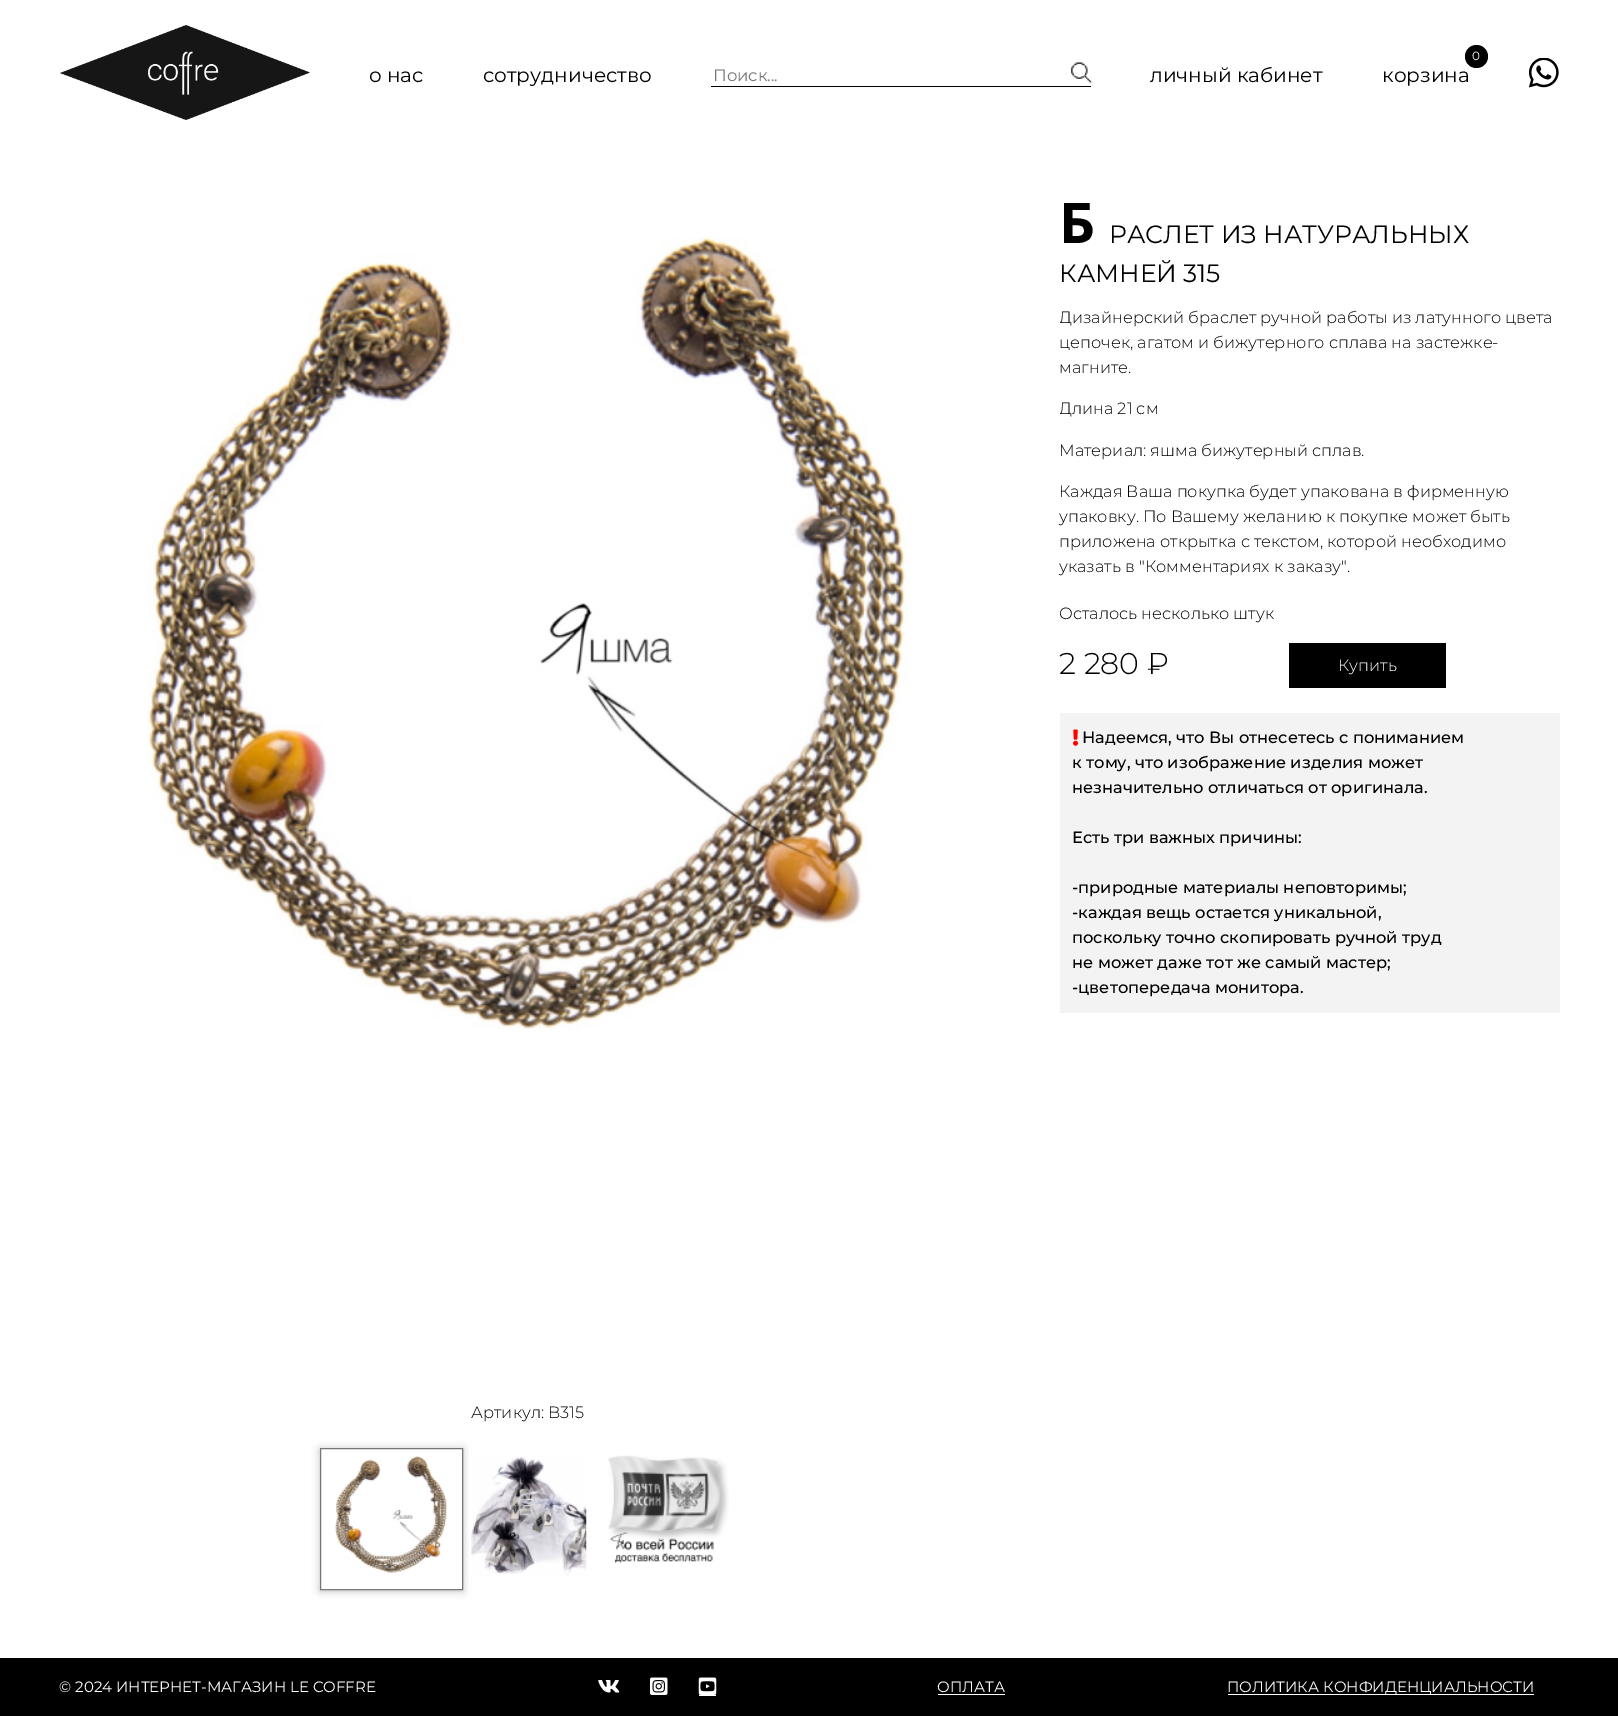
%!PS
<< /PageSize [1618 1733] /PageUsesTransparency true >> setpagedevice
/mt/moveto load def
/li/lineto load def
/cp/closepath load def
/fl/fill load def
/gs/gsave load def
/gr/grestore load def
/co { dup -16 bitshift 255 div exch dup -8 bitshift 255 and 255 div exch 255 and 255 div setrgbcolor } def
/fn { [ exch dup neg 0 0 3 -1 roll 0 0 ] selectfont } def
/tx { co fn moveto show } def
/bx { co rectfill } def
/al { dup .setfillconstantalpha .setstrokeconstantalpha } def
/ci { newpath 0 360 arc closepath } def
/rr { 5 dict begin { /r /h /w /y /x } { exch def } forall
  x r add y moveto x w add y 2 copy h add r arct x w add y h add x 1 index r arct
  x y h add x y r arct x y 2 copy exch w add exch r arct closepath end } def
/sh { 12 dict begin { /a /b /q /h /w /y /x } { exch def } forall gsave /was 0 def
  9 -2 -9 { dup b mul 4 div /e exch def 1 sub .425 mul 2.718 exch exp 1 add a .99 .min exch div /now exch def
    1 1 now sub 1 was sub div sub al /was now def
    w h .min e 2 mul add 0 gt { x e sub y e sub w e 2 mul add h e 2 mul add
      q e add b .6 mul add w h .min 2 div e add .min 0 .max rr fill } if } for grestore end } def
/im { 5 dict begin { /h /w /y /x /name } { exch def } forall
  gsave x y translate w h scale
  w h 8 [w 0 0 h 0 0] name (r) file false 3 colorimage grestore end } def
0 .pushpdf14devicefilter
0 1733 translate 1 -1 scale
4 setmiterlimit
0 0 1618 1733 16#FFFFFF bx
(media/1.raw) 60 25 250 95 im
711 86 380 1 16#000000 bx
(media/2.raw) 1071 62 21 21 im
1476.5 56.5 11.5 ci fl
(media/3.raw) 1529 58 30 30 im
1289 643 157 45 16#000000 bx
1060 713 500 300 16#F3F3F3 bx
(media/4.raw) 1073 729 6 17 im
(media/5.raw) 147 236 763 794 im
gs
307 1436 mt 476 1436 li 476 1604 li 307 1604 li cp 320 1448 mt 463 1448 li 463 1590 li 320 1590 li cp eoclip newpath
16#BBBBBB co
320 1449 143 142 0 4 1 sh
gr
16#777777 co
320.5 1448.5 142 141 rectstroke
(media/6.raw) 335 1456 112 117 im
16#FFFFFF co
469.5 1448.5 119 141 rectstroke
(media/7.raw) 471 1456 116 120 im
(media/8.raw) 608 1455 121 108 im
0 1658 1618 58 16#000000 bx
(media/9.raw) 598 1680 22 13 im
(media/10.raw) 650 1677 18 18 im
(media/11.raw) 698 1677 19 18 im
699 1695 17 1 16#FFFFFF bx
938 1694 67 1 16#FFFFFF bx
1228 1694 306 1 16#FFFFFF bx
(о нас) 369 82 /Montserrat-Regular 20 16#000000 tx
(сотрудничество) 483 82 /Montserrat-Regular 20 16#000000 tx
(Поиск...) 713 81 /Montserrat-Regular 16.5 16#757575 tx
(личный кабинет) 1150 82 /Montserrat-Regular 20 16#000000 tx
(0) 1472 60 /Montserrat-Regular 12 16#FFFFFF tx
(корзина) 1382 82 /Montserrat-Regular 20 16#000000 tx
(Б) 1059 243 /NotoSans-Bold 56 16#000000 tx
(РАСЛЕТ ИЗ НАТУРАЛЬНЫХ) 1109 243 /Montserrat-Regular 25 16#000000 tx
(КАМНЕЙ 315) 1059 282 /Montserrat-Regular 25 16#000000 tx
gs
1060 194 500 1414 rectclip
(Дизайнерский браслет ручной работы из латунного цвета) 1059 323 /Montserrat-Light 16.25 16#000000 tx
gr
(цепочек, агатом и бижутерного сплава на застежке-) 1059 348 /Montserrat-Light 16.25 16#000000 tx
(магните.) 1059 373 /Montserrat-Light 16.25 16#000000 tx
gs
1060 194 500 1414 rectclip
(Длина 21 см) 1059 414 /Montserrat-Light 16.25 16#000000 tx
gr
(Материал: яшма бижутерный сплав.) 1059 456 /Montserrat-Light 16.25 16#000000 tx
(Каждая Ваша покупка будет упакована в фирменную) 1059 497 /Montserrat-Light 16.25 16#000000 tx
(упаковку. По Вашему желанию к покупке может быть) 1059 522 /Montserrat-Light 16.25 16#000000 tx
(приложена открытка с текстом, которой необходимо) 1059 547 /Montserrat-Light 16.25 16#000000 tx
(указать в "Комментариях к заказу".) 1059 572 /Montserrat-Light 16.25 16#000000 tx
(Осталось несколько штук) 1059 619 /Montserrat-Light 16.25 16#000000 tx
(2 280 ₽) 1059 674 /Montserrat-Light 30 16#000000 tx
(Купить) 1338 671 /Montserrat-Light 16.25 16#FFFFFF tx
(Надеемся, что Вы отнесетесь с пониманием) 1082 743 /Montserrat-Medium 16.25 16#000000 tx
(к тому, что изображение изделия может) 1072 768 /Montserrat-Medium 16.25 16#000000 tx
(незначительно отличаться от оригинала.) 1072 793 /Montserrat-Medium 16.25 16#000000 tx
(Есть три важных причины:) 1072 843 /Montserrat-Medium 16.25 16#000000 tx
(-природные материалы неповторимы;) 1072 893 /Montserrat-Medium 16.25 16#000000 tx
(-каждая вещь остается уникальной,) 1072 918 /Montserrat-Medium 16.25 16#000000 tx
(поскольку точно скопировать ручной труд) 1072 943 /Montserrat-Medium 16.25 16#000000 tx
(не может даже тот же самый мастер;) 1072 968 /Montserrat-Medium 16.25 16#000000 tx
(-цветопередача монитора.) 1072 993 /Montserrat-Medium 16.25 16#000000 tx
(Артикул: B315) 471 1418 /Montserrat-Light 16.25 16#000000 tx
(© 2024 ИНТЕРНЕТ-МАГАЗИН LE COFFRE) 59 1692 /Montserrat-Regular 15 16#FFFFFF tx
(ОПЛАТА) 937 1692 /Montserrat-Regular 15 16#FFFFFF tx
(ПОЛИТИКА КОНФИДЕНЦИАЛЬНОСТИ) 1227 1692 /Montserrat-Regular 15 16#FFFFFF tx
.poppdf14devicefilter showpage
